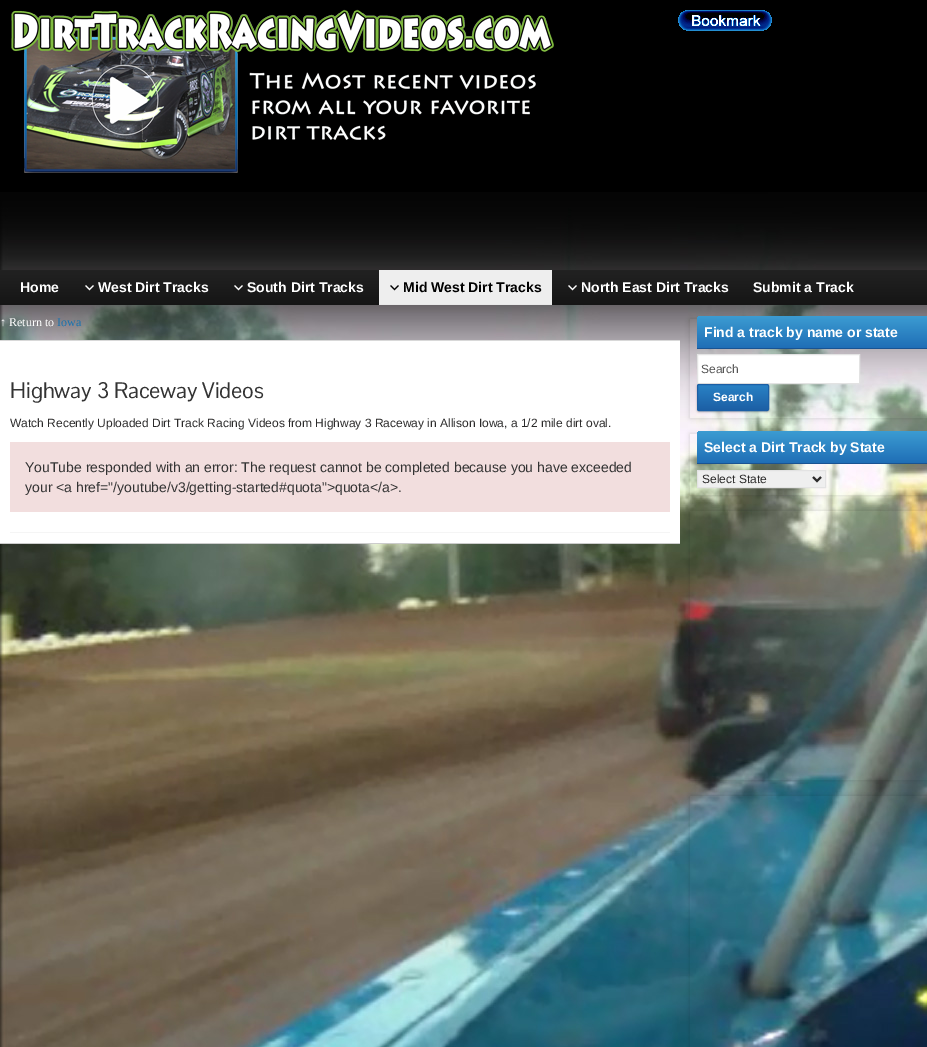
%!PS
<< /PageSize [927 1047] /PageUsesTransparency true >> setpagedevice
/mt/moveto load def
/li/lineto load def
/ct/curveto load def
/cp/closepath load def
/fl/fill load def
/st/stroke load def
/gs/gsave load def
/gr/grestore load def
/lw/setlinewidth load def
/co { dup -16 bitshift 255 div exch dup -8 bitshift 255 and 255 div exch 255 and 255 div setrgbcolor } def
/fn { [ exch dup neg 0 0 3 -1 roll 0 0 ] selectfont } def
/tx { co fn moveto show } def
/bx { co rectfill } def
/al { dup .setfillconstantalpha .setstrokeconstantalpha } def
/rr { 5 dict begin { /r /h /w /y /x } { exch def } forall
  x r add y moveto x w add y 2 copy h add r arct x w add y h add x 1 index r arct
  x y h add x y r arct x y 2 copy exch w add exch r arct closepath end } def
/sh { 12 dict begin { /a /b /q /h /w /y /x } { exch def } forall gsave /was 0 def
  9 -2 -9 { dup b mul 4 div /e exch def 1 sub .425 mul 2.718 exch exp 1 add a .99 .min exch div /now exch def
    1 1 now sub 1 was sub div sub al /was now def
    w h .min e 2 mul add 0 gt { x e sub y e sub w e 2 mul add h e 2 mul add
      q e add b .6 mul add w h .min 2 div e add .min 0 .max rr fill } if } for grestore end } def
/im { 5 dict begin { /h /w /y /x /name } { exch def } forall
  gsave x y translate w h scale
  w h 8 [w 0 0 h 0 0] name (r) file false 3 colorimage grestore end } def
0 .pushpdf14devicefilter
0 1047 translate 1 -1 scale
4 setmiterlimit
0 0 927 1047 16#000000 bx
(media/1.raw) 0 192 927 855 im
(media/2.raw) 678 10 94 21 im
(media/3.raw) 11 9 543 164 im
(media/4.raw) 0 270 927 35 im
(media/5.raw) 85 285 9 6 im
(media/5.raw) 234 285 9 6 im
379 270 173 34 16#EEEEEE bx
379 304 173 1 16#E9E9E9 bx
(media/6.raw) 390 285 9 6 im
(media/5.raw) 568 285 9 6 im
0 341 680 202 16#FFFFFF bx
0 340 680 1 16#D8D8D8 bx
0 543 680 1 16#CCCCCC bx
10 442 660 70 16#F2DEDE bx
10 532 660 1 16#F5F5F5 bx
gs
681 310 mt 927 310 li 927 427 li 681 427 li cp 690 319 mt 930 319 li 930 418 li 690 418 li cp eoclip newpath
16#000000 co
690 319 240 99 0 2.5 .15 sh
gr
gs 702 316 mt 927 316 li 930 316 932 318 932 321 ct 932 348 li 697 348 li 697 321 li 697 318 699 316 702 316 ct cp clip newpath
<< /ShadingType 2 /ColorSpace /DeviceRGB /Coords [817 316 817 348] /Extend [true true] /Function << /FunctionType 2 /Domain [0 1] /C0 [.235 .612 .824] /C1 [.122 .431 .714] /N 1 >> >> shfill gr
697 348 230 1 16#195392 bx
16#FFFFFF co
697.5 354.5 mt 859.5 354.5 li 859.5 383.5 li 697.5 383.5 li cp gs fl gr
16#E3E3E3 co
st
16#000000 co
697 385 72 27 2 1 .3 sh
gs
697 384 72 27 2 rr clip newpath
gs 697 385 mt 769 385 li 769 410 li 697 410 li cp clip newpath
<< /ShadingType 2 /ColorSpace /DeviceRGB /Coords [733 385 733 410] /Extend [true true] /Function << /FunctionType 2 /Domain [0 1] /C0 [.161 .51 .773] /C1 [.11 .373 .647] /N 1 >> >> shfill gr
gr
16#1C5FA5 co
697.5 384.5 71 26 1.5 rr st
gs
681 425 mt 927 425 li 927 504 li 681 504 li cp 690 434 mt 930 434 li 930 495 li 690 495 li cp eoclip newpath
16#000000 co
690 434 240 61 0 2.5 .15 sh
gr
gs 702 431 mt 927 431 li 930 431 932 433 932 436 ct 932 463 li 697 463 li 697 436 li 697 433 699 431 702 431 ct cp clip newpath
<< /ShadingType 2 /ColorSpace /DeviceRGB /Coords [817 431 817 463] /Extend [true true] /Function << /FunctionType 2 /Domain [0 1] /C0 [.235 .612 .824] /C1 [.122 .431 .714] /N 1 >> >> shfill gr
697 463 230 1 16#195392 bx
16#EFEFEF co
697.5 470.5 mt 825.5 470.5 li 825.5 487.5 li 697.5 487.5 li cp gs fl gr
16#E3E3E3 co
st
16#2C2B2B co
2 lw
813 477 mt 817 481 li 821 477 li st
gs
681 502 mt 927 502 li 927 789 li 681 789 li cp 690 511 mt 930 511 li 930 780 li 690 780 li cp eoclip newpath
16#000000 co
690 511 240 269 0 2.5 .15 sh
gr
gs
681 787 mt 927 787 li 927 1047 li 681 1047 li cp 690 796 mt 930 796 li 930 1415 li 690 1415 li cp eoclip newpath
16#000000 co
690 796 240 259 0 2.5 .15 sh
gr
(Home) 20 292 /LiberationSans-Bold 14 16#FFFFFF tx
(West Dirt Tracks) 98 292 /LiberationSans-Bold 14 16#FFFFFF tx
(South Dirt Tracks) 247 292 /LiberationSans-Bold 14 16#FFFFFF tx
(Mid West Dirt Tracks) 403 292 /LiberationSans-Bold 14 16#000000 tx
(North East Dirt Tracks) 581 292 /LiberationSans-Bold 14 16#FFFFFF tx
(Submit a Track) 753 292 /LiberationSans-Bold 14 16#FFFFFF tx
(↑ Return to) 0 326 /LiberationSerif-Regular 12 16#FFFFFF tx
(Iowa) 57 326 /LiberationSerif-Regular 12 16#1772AF tx
(Highway 3 Raceway Videos) 10 398 /PontanoSans-Regular 22 16#333333 tx
(Watch Recently Uploaded Dirt Track Racing Videos from Highway 3 Raceway in Allison Iowa, a 1/2 mile dirt oval.) 10 427 /LiberationSans-Regular 12 16#2C2B2B tx
(YouTube responded with an error: The request cannot be completed because you have exceeded) 25 472 /LiberationSans-Regular 14 16#333333 tx
(your <a href="/youtube/v3/getting-started#quota">quota</a>.) 25 492 /LiberationSans-Regular 14 16#333333 tx
(Find a track by name or state) 704 337 /LiberationSans-Bold 14 16#FFFFFF tx
(Search) 701 373 /LiberationSans-Regular 12 16#555555 tx
(Search) 713 401 /LiberationSans-Bold 12 16#FFFFFF tx
(Select a Dirt Track by State) 704 452 /LiberationSans-Bold 14 16#FFFFFF tx
(Select State) 702 483 /LiberationSans-Regular 12 16#2C2B2B tx
.poppdf14devicefilter showpage
